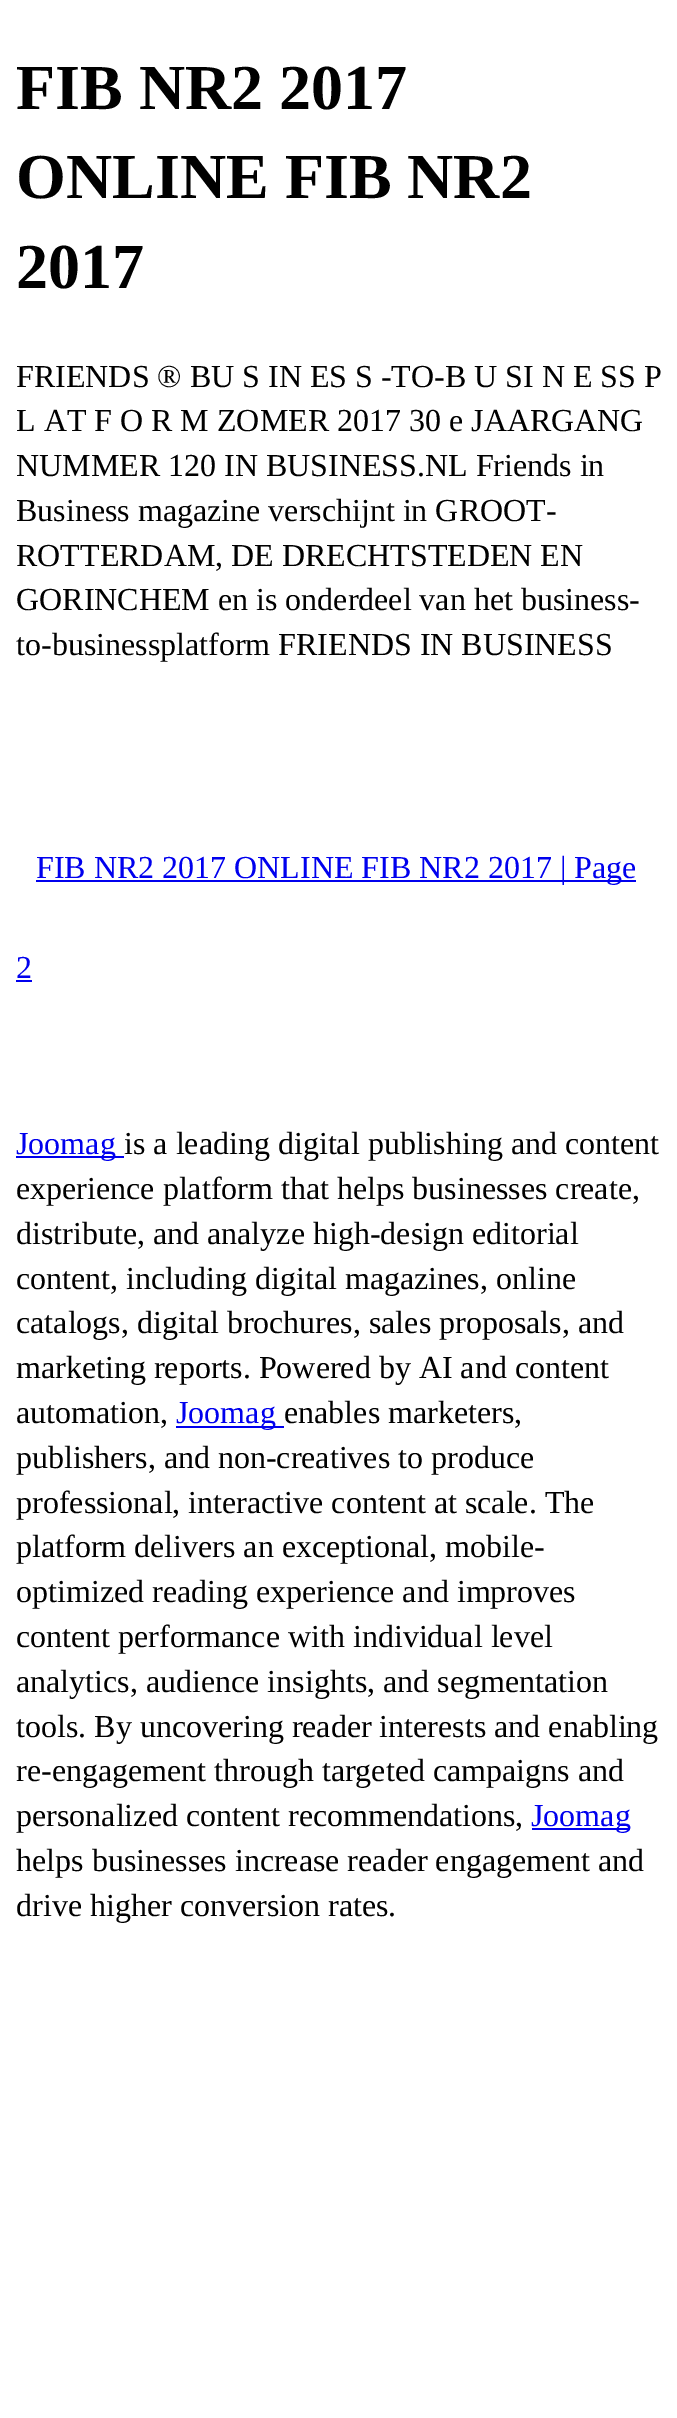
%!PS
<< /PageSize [677 2418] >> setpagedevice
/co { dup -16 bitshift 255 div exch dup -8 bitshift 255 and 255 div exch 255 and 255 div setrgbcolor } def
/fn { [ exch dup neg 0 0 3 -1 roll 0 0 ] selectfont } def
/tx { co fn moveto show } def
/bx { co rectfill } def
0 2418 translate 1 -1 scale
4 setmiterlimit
0 0 677 2418 16#FFFFFF bx
36 880 600 2 16#0000EE bx
16 980 16 2 16#0000EE bx
16 1156 108 2 16#0000EE bx
176 1426 108 2 16#0000EE bx
532 1828 98 2 16#0000EE bx
(FIB NR2 2017) 16 109 /LiberationSerif-Bold 64 16#000000 tx
(ONLINE FIB NR2) 16 198 /LiberationSerif-Bold 64 16#000000 tx
(2017) 16 288 /LiberationSerif-Bold 64 16#000000 tx
(FRIENDS ® BU S IN ES S -TO-B U SI N E SS P) 16 387 /LiberationSerif-Regular 32 16#000000 tx
(L AT F O R M ZOMER 2017 30 e JAARGANG) 16 431 /LiberationSerif-Regular 32 16#000000 tx
(NUMMER 120 IN BUSINESS.NL Friends in) 16 476 /LiberationSerif-Regular 32 16#000000 tx
(Business magazine verschijnt in GROOT-) 16 521 /LiberationSerif-Regular 32 16#000000 tx
(ROTTERDAM, DE DRECHTSTEDEN EN) 16 566 /LiberationSerif-Regular 32 16#000000 tx
(GORINCHEM en is onderdeel van het business-) 16 610 /LiberationSerif-Regular 32 16#000000 tx
(to-businessplatform FRIENDS IN BUSINESS) 16 655 /LiberationSerif-Regular 32 16#000000 tx
(FIB NR2 2017 ONLINE FIB NR2 2017 | Page) 36 878 /LiberationSerif-Regular 32 16#0000EE tx
(2) 16 978 /LiberationSerif-Regular 32 16#0000EE tx
(Joomag) 16 1154 /LiberationSerif-Regular 32 16#0000EE tx
(is a leading digital publishing and content) 124 1154 /LiberationSerif-Regular 32 16#000000 tx
(experience platform that helps businesses create,) 16 1199 /LiberationSerif-Regular 32 16#000000 tx
(distribute, and analyze high-design editorial) 16 1244 /LiberationSerif-Regular 32 16#000000 tx
(content, including digital magazines, online) 16 1289 /LiberationSerif-Regular 32 16#000000 tx
(catalogs, digital brochures, sales proposals, and) 16 1333 /LiberationSerif-Regular 32 16#000000 tx
(marketing reports. Powered by AI and content) 16 1378 /LiberationSerif-Regular 32 16#000000 tx
(automation,) 16 1423 /LiberationSerif-Regular 32 16#000000 tx
(Joomag) 176 1423 /LiberationSerif-Regular 32 16#0000EE tx
(enables marketers,) 284 1423 /LiberationSerif-Regular 32 16#000000 tx
(publishers, and non-creatives to produce) 16 1468 /LiberationSerif-Regular 32 16#000000 tx
(professional, interactive content at scale. The) 16 1513 /LiberationSerif-Regular 32 16#000000 tx
(platform delivers an exceptional, mobile-) 16 1557 /LiberationSerif-Regular 32 16#000000 tx
(optimized reading experience and improves) 16 1602 /LiberationSerif-Regular 32 16#000000 tx
(content performance with individual level) 16 1647 /LiberationSerif-Regular 32 16#000000 tx
(analytics, audience insights, and segmentation) 16 1692 /LiberationSerif-Regular 32 16#000000 tx
(tools. By uncovering reader interests and enabling) 16 1737 /LiberationSerif-Regular 32 16#000000 tx
(re-engagement through targeted campaigns and) 16 1781 /LiberationSerif-Regular 32 16#000000 tx
(personalized content recommendations,) 16 1826 /LiberationSerif-Regular 32 16#000000 tx
(Joomag) 531 1826 /LiberationSerif-Regular 32 16#0000EE tx
(helps businesses increase reader engagement and) 16 1871 /LiberationSerif-Regular 32 16#000000 tx
(drive higher conversion rates.) 16 1916 /LiberationSerif-Regular 32 16#000000 tx
showpage
